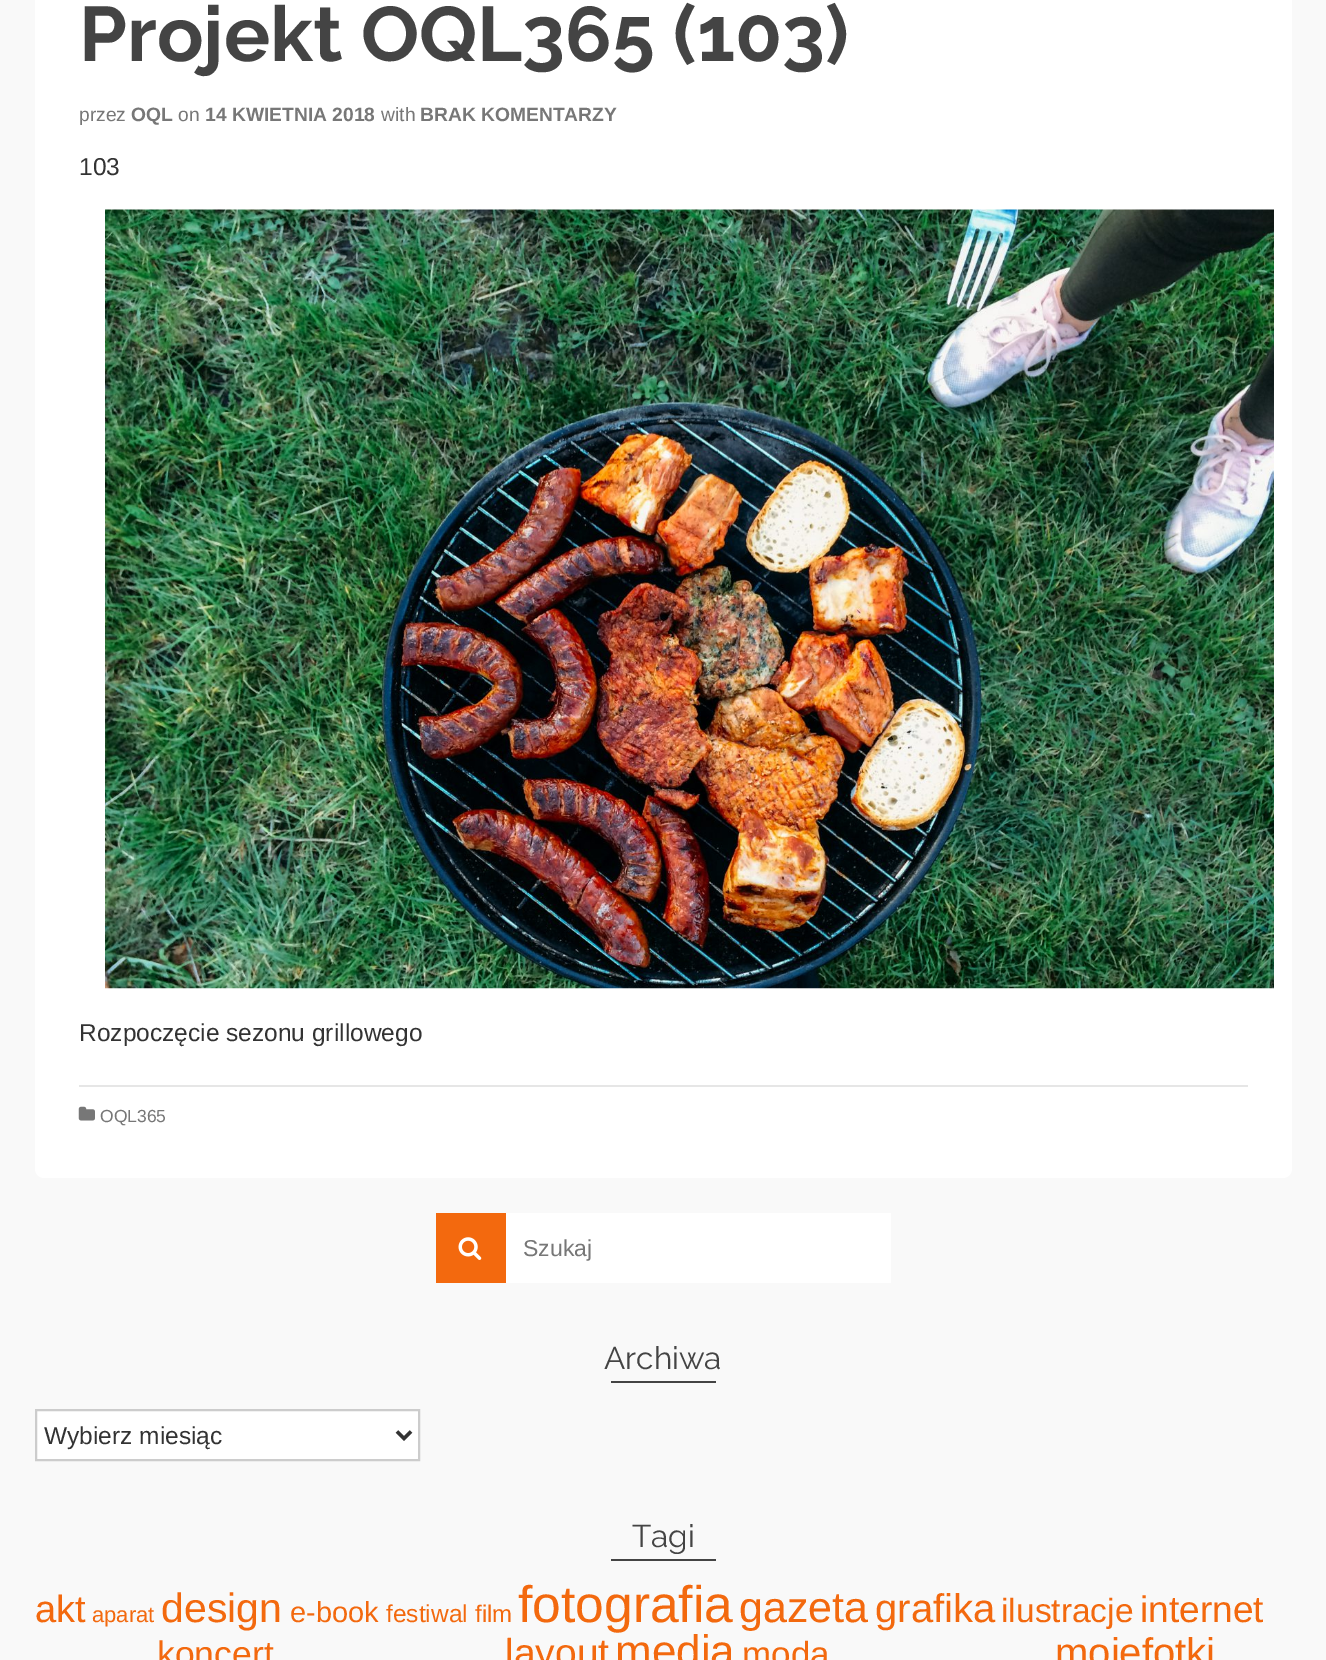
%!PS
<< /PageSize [1326 1660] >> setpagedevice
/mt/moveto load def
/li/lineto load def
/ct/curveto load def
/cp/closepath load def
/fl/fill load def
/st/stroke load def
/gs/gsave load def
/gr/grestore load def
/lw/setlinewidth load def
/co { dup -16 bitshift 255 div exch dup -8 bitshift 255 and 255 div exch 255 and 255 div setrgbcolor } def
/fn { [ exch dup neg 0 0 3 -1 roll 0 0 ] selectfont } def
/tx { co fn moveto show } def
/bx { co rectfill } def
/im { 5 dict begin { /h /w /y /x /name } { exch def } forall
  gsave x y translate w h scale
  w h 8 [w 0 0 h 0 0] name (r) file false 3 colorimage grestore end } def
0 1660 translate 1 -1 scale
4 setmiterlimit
0 0 1326 1660 16#F9F9F9 bx
16#FFFFFF co
35 -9 mt 1292 -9 li 1292 1169 li 1292 1174 1288 1178 1283 1178 ct 44 1178 li 39 1178 35 1174 35 1169 ct cp fl
(media/1.raw) 105 209 1169 780 im
79 1085 1169 2 16#E6E6E6 bx
(media/2.raw) 78 1106 17 15 im
436 1213 70 70 16#F3690E bx
(media/3.raw) 458 1237 24 23 im
506 1213 385 70 16#FFFFFF bx
611 1381 105 2 16#444444 bx
16#FFFFFF co
36 1410 mt 419 1410 li 419 1460 li 36 1460 li cp gs fl gr
16#CCCCCC co
2 lw
st
16#333333 co
3.5 lw
397 1431.5 mt 404 1438.5 li 411 1431.5 li st
611 1559 105 2 16#444444 bx
(Projekt OQL365 \(103\)) 79 61 /Raleway-Bold 77 16#444444 tx
(przez) 79 121 /LiberationSans-Regular 19.25 16#777777 tx
(OQL) 131 121 /LiberationSans-Bold 19.25 16#777777 tx
(on) 178 121 /LiberationSans-Regular 19.25 16#777777 tx
(14 KWIETNIA 2018) 205 121 /LiberationSans-Bold 19.25 16#777777 tx
(with) 381 121 /LiberationSans-Regular 19.25 16#777777 tx
(BRAK KOMENTARZY) 420 121 /LiberationSans-Bold 19.25 16#777777 tx
(103) 79 175 /LiberationSans-Regular 24.5 16#333333 tx
(Rozpoczęcie sezonu grillowego) 79 1041 /LiberationSans-Regular 24.5 16#333333 tx
(OQL365) 100 1122 /LiberationSans-Regular 17.5 16#777777 tx
(Szukaj) 523 1256 /LiberationSans-Regular 23 16#777777 tx
(Archiwa) 604 1369 /Raleway-Regular 31.5 16#444444 tx
(Wybierz miesiąc) 44 1444 /LiberationSans-Regular 24.5 16#333333 tx
(Tagi) 632 1547 /Raleway-Regular 31.5 16#444444 tx
(akt) 35 1622 /LiberationSans-Regular 38 16#F3690E tx
(aparat) 92 1622 /LiberationSans-Regular 22 16#F3690E tx
(design) 161 1622 /LiberationSans-Regular 41 16#F3690E tx
(e-book) 290 1622 /LiberationSans-Regular 29 16#F3690E tx
(festiwal) 386 1622 /LiberationSans-Regular 24.5 16#F3690E tx
(film) 475 1622 /LiberationSans-Regular 24 16#F3690E tx
(fotografia) 518 1622 /LiberationSans-Regular 51.5 16#F3690E tx
(gazeta) 739 1622 /LiberationSans-Regular 43 16#F3690E tx
(grafika) 875 1622 /LiberationSans-Regular 40 16#F3690E tx
(ilustracje) 1001 1622 /LiberationSans-Regular 33.5 16#F3690E tx
(internet) 1140 1622 /LiberationSans-Regular 37 16#F3690E tx
(koncert) 157 1666 /LiberationSans-Regular 35.5 16#F3690E tx
(layout) 505 1666 /LiberationSans-Regular 39 16#F3690E tx
(media) 615 1666 /LiberationSans-Regular 44 16#F3690E tx
(moda) 742 1666 /LiberationSans-Regular 35 16#F3690E tx
(mojefotki) 1055 1666 /LiberationSans-Regular 40 16#F3690E tx
showpage
